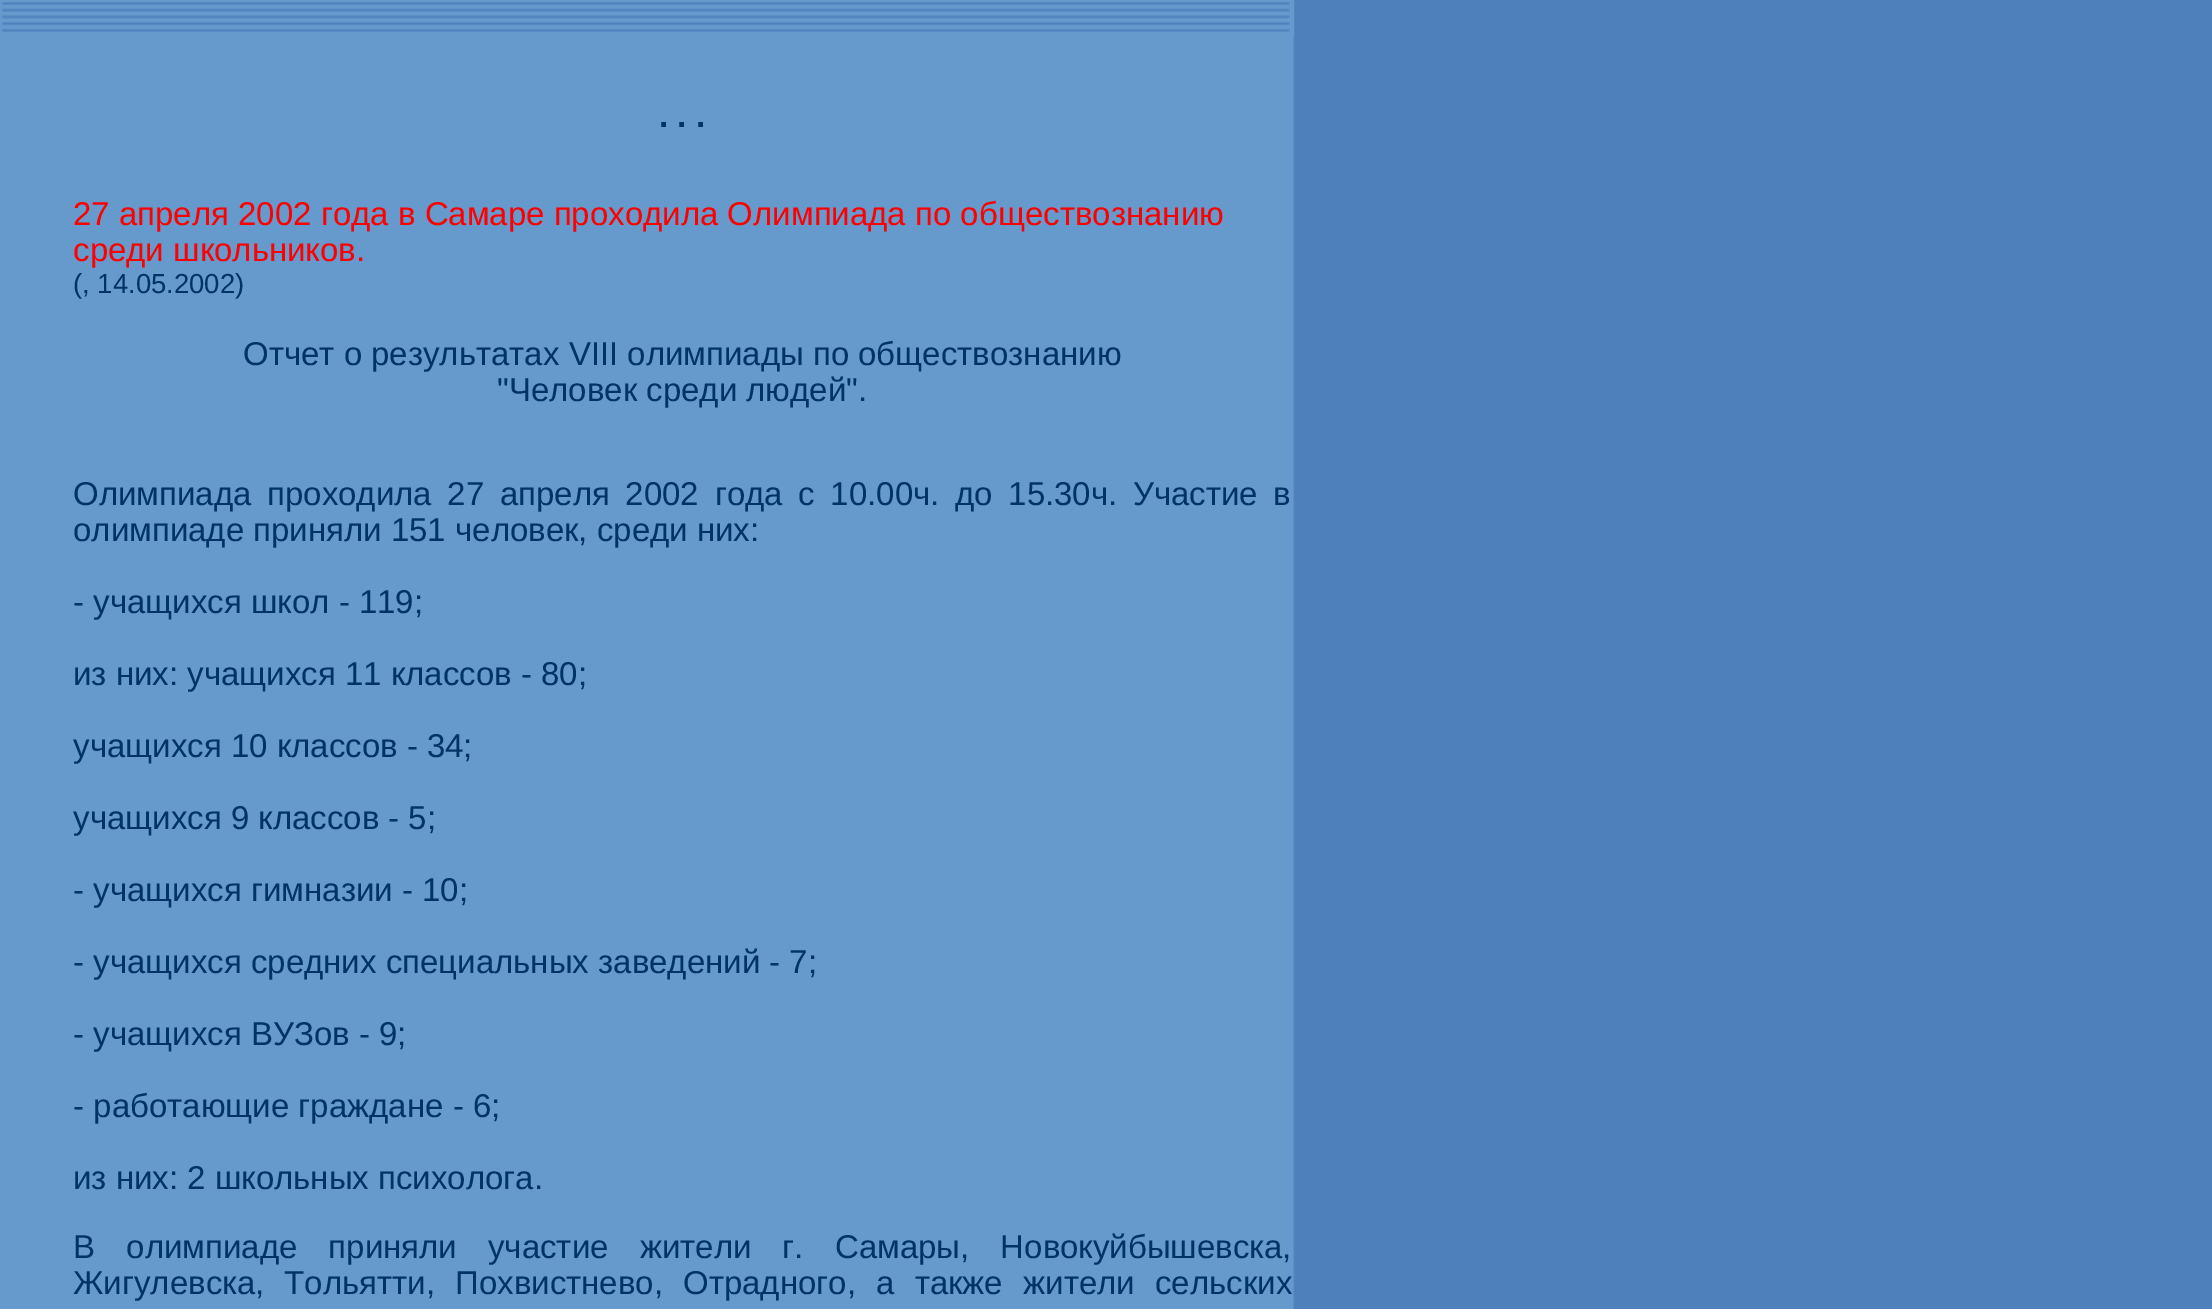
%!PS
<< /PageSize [2212 1309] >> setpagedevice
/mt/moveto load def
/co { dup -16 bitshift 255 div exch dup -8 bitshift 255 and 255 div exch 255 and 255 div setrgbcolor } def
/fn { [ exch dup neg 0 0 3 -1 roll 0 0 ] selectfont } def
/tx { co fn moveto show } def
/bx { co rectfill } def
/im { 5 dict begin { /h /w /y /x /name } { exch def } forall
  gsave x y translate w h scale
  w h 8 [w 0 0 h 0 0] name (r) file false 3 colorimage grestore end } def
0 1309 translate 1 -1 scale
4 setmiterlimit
0 0 2212 1309 16#6699CC bx
(media/1.raw) 1293 0 919 1309 im
(media/2.raw) 2 2 1288 30 im
1293 0 1 36 16#6699CC bx
(. . .) 659 127 /LiberationSans-Bold 33 16#003366 tx
(27 апреля 2002 года в Самаре проходила Олимпиада по обществознанию) 73 225 /LiberationSans-Regular 33 16#FF0000 tx
(среди школьников.) 73 261 /LiberationSans-Regular 33 16#FF0000 tx
(\(, 14.05.2002\)) 73 293 /LiberationSans-Regular 27.5 16#003366 tx
(Отчет о результатах VIII олимпиады по обществознанию) 243 365 /LiberationSans-Regular 33 16#003366 tx
("Человек среди людей".) 497 401 /LiberationSans-Regular 33 16#003366 tx
73 505 mt 6.5 0 32 (Олимпиада проходила 27 апреля 2002 года с 10.00ч. до 15.30ч. Участие в) widthshow
(олимпиаде приняли 151 человек, среди них:) 73 541 /LiberationSans-Regular 33 16#003366 tx
(- учащихся школ - 119;) 73 613 /LiberationSans-Regular 33 16#003366 tx
(из них: учащихся 11 классов - 80;) 73 685 /LiberationSans-Regular 33 16#003366 tx
(учащихся 10 классов - 34;) 73 757 /LiberationSans-Regular 33 16#003366 tx
(учащихся 9 классов - 5;) 73 829 /LiberationSans-Regular 33 16#003366 tx
(- учащихся гимназии - 10;) 73 901 /LiberationSans-Regular 33 16#003366 tx
(- учащихся средних специальных заведений - 7;) 73 973 /LiberationSans-Regular 33 16#003366 tx
(- учащихся ВУЗов - 9;) 73 1045 /LiberationSans-Regular 33 16#003366 tx
(- работающие граждане - 6;) 73 1117 /LiberationSans-Regular 33 16#003366 tx
(из них: 2 школьных психолога.) 73 1189 /LiberationSans-Regular 33 16#003366 tx
73 1258 mt 22 0 32 (В олимпиаде приняли участие жители г. Самары, Новокуйбышевска,) widthshow
73 1294 mt 11 0 32 (Жигулевска, Тольятти, Похвистнево, Отрадного, а также жители сельских) widthshow
showpage
